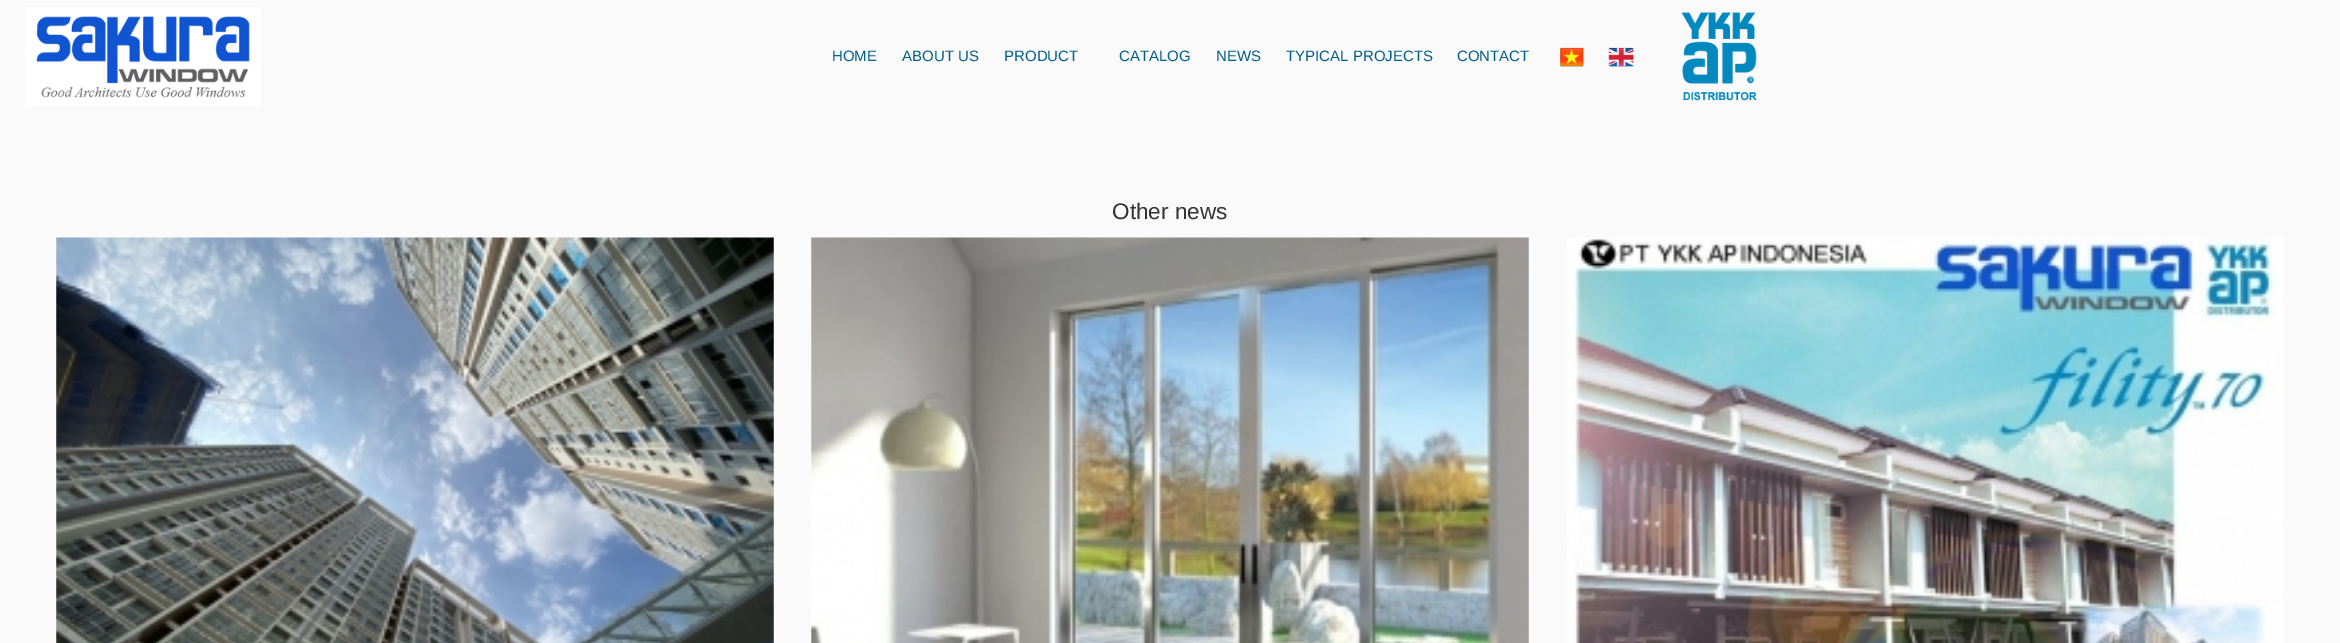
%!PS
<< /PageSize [2340 643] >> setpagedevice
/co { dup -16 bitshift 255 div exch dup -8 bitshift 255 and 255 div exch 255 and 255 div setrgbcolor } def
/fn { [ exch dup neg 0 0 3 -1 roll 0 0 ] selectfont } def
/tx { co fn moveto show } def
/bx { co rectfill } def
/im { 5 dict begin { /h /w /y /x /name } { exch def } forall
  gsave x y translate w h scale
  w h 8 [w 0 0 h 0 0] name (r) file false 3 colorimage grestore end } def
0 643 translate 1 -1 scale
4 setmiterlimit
0 0 2340 643 16#FAFAFA bx
(media/1.raw) 25 7 236 99 im
(media/2.raw) 1560 47 24 20 im
(media/3.raw) 1608 47 26 20 im
(media/4.raw) 1681 12 76 89 im
(media/5.raw) 56 237 718 406 im
(media/6.raw) 811 237 718 406 im
(media/7.raw) 1567 238 716 405 im
(HOME) 832 61 /LiberationSans-Regular 15 16#025F86 tx
(ABOUT US) 902 61 /LiberationSans-Regular 15 16#025F86 tx
(PRODUCT) 1004 61 /LiberationSans-Regular 15 16#025F86 tx
(CATALOG) 1119 61 /LiberationSans-Regular 15 16#025F86 tx
(NEWS) 1216 61 /LiberationSans-Regular 15 16#025F86 tx
(TYPICAL PROJECTS) 1286 61 /LiberationSans-Regular 15 16#025F86 tx
(CONTACT) 1457 61 /LiberationSans-Regular 15 16#025F86 tx
(Other news) 1112 219 /LiberationSans-Regular 22.5 16#333333 tx
showpage
